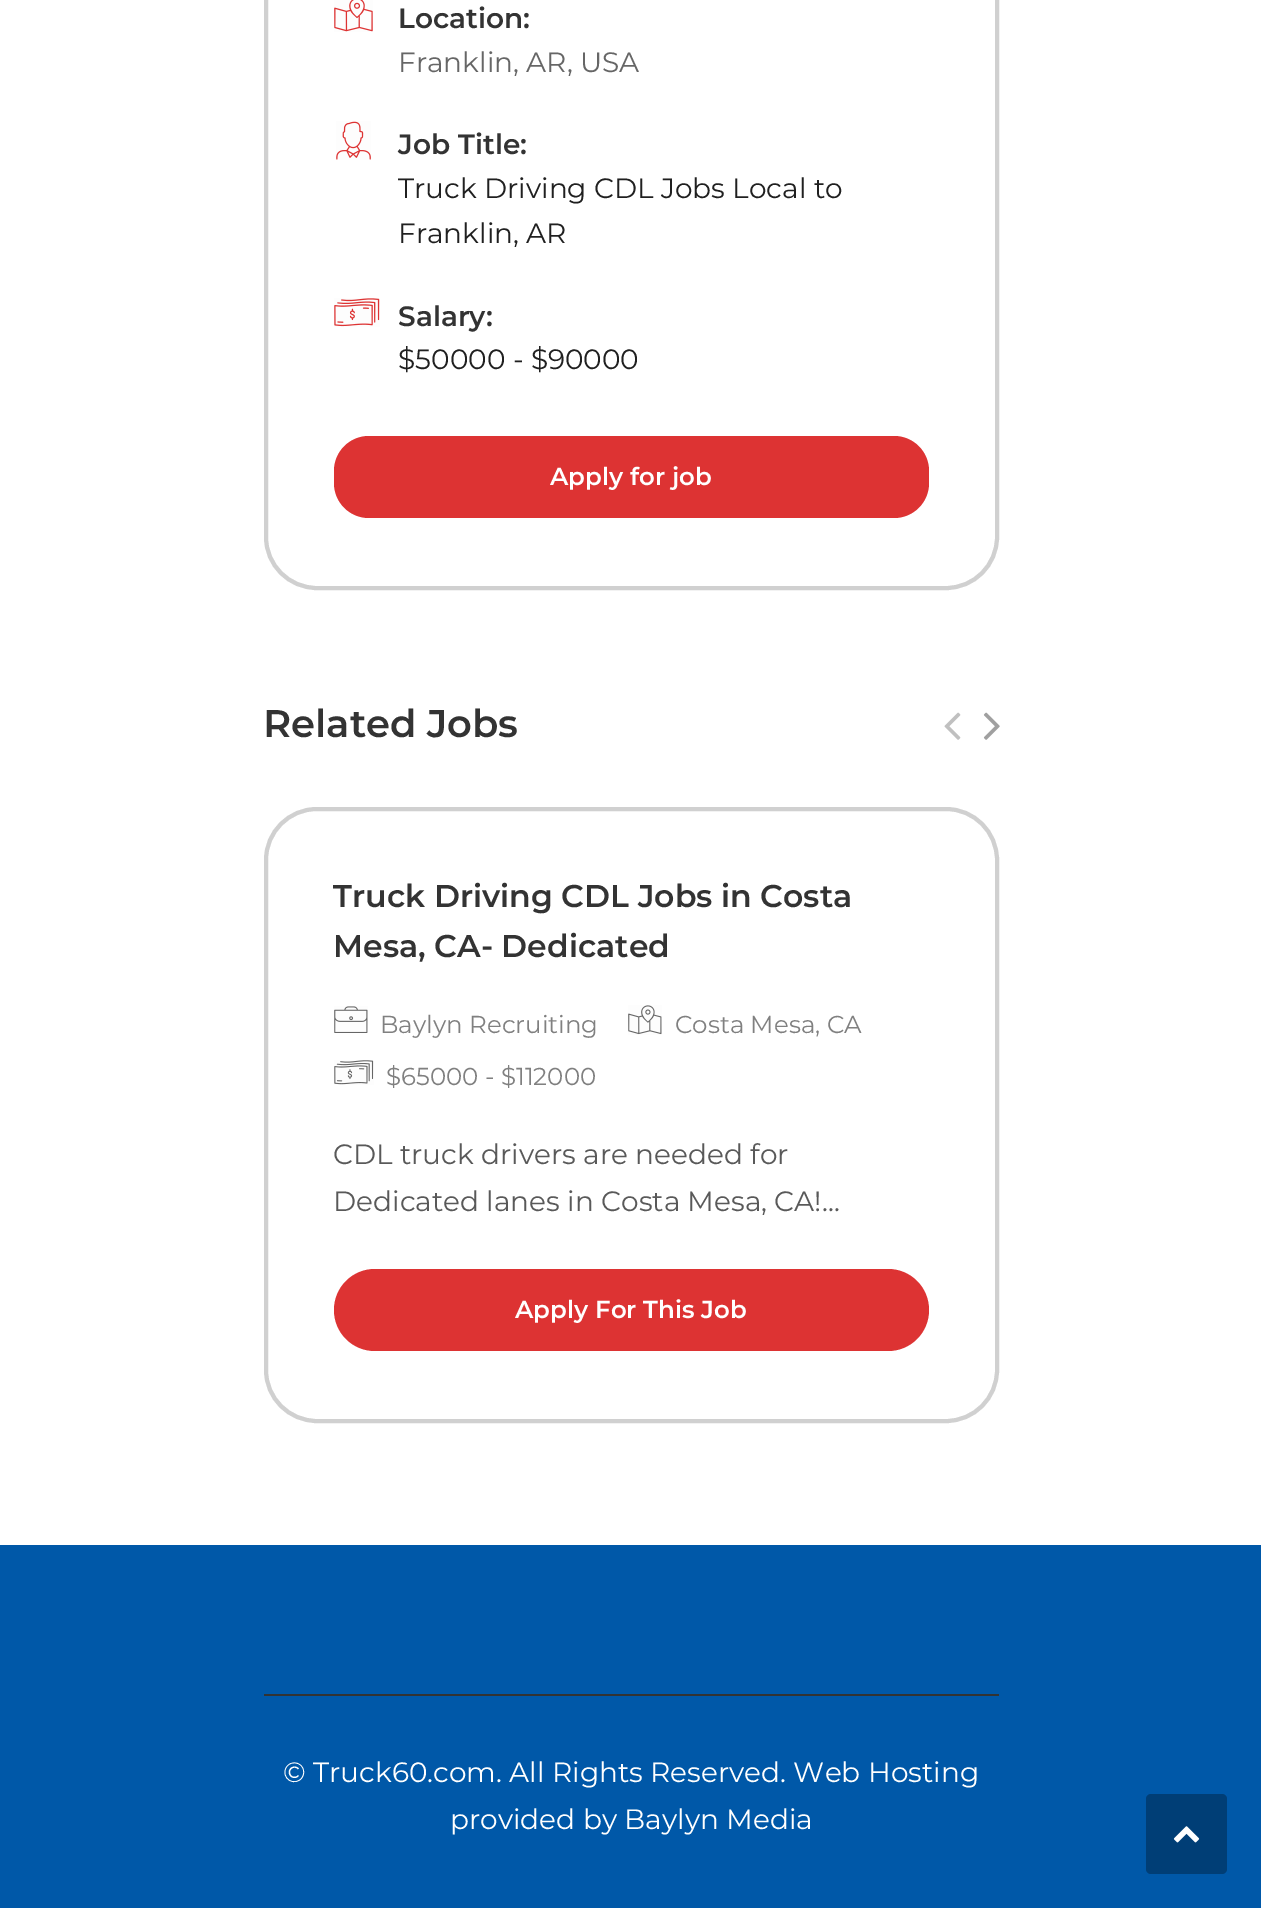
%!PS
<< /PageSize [1261 1908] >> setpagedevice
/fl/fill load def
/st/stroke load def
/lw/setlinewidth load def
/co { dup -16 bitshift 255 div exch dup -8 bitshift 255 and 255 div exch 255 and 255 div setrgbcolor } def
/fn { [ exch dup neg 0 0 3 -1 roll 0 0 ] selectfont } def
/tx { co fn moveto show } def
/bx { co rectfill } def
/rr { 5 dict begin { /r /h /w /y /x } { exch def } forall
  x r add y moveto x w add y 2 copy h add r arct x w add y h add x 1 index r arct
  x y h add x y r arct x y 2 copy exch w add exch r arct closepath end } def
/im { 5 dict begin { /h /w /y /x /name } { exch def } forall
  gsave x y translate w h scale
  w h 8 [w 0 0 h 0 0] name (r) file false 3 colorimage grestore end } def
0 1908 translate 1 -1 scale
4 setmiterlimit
0 0 1261 1908 16#FFFFFF bx
16#D0D0D0 co
4 lw
266 -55 731 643 51 rr st
(media/1.raw) 334 0 39 32 im
(media/2.raw) 336 121 35 39 im
(media/3.raw) 334 298 46 29 im
16#DD3333 co
334 436 595 82 35 rr fl
(media/4.raw) 944 712 17 28 im
(media/5.raw) 983 712 17 28 im
16#D0D0D0 co
266 809 731 612 51 rr st
(media/6.raw) 334 1006 34 27 im
(media/7.raw) 628 1005 34 30 im
(media/8.raw) 334 1060 40 25 im
16#DD3333 co
334 1269 595 82 41 rr fl
0 1545 1261 363 16#0058A8 bx
264 1694 735 2 16#333333 bx
16#003E76 co
1146 1794 81 80 5 rr fl
(media/9.raw) 1173 1826 27 17 im
(Location:) 398 28 /Montserrat-SemiBold 28 16#333333 tx
(Franklin, AR, USA) 398 72 /Montserrat-Regular 28 16#666666 tx
(Job Title:) 398 154 /Montserrat-SemiBold 28 16#333333 tx
(Truck Driving CDL Jobs Local to) 398 198 /Montserrat-Regular 28 16#202020 tx
(Franklin, AR) 398 243 /Montserrat-Regular 28 16#202020 tx
(Salary:) 398 326 /Montserrat-SemiBold 28 16#333333 tx
($50000 - $90000) 398 369 /Montserrat-Regular 28 16#202020 tx
(Apply for job) 550 485 /Montserrat-SemiBold 24.5 16#FFFFFF tx
(Related Jobs) 263 737 /Montserrat-SemiBold 38.5 16#333333 tx
(Truck Driving CDL Jobs in Costa) 333 907 /Montserrat-SemiBold 31.5 16#333333 tx
(Mesa, CA- Dedicated) 333 957 /Montserrat-SemiBold 31.5 16#333333 tx
(Baylyn Recruiting) 380 1033 /Montserrat-Regular 24.5 16#808080 tx
(Costa Mesa, CA) 675 1033 /Montserrat-Regular 24.5 16#808080 tx
($65000 - $112000) 386 1085 /Montserrat-Regular 24.5 16#808080 tx
(CDL truck drivers are needed for) 333 1164 /Montserrat-Regular 28 16#595959 tx
(Dedicated lanes in Costa Mesa, CA!...) 333 1211 /Montserrat-Regular 28 16#595959 tx
(Apply For This Job) 515 1318 /Montserrat-SemiBold 24.5 16#FFFFFF tx
(© Truck60.com. All Rights Reserved. Web Hosting) 283 1782 /Montserrat-Regular 28 16#FFFFFF tx
(provided by Baylyn Media) 450 1829 /Montserrat-Regular 28 16#FFFFFF tx
showpage
